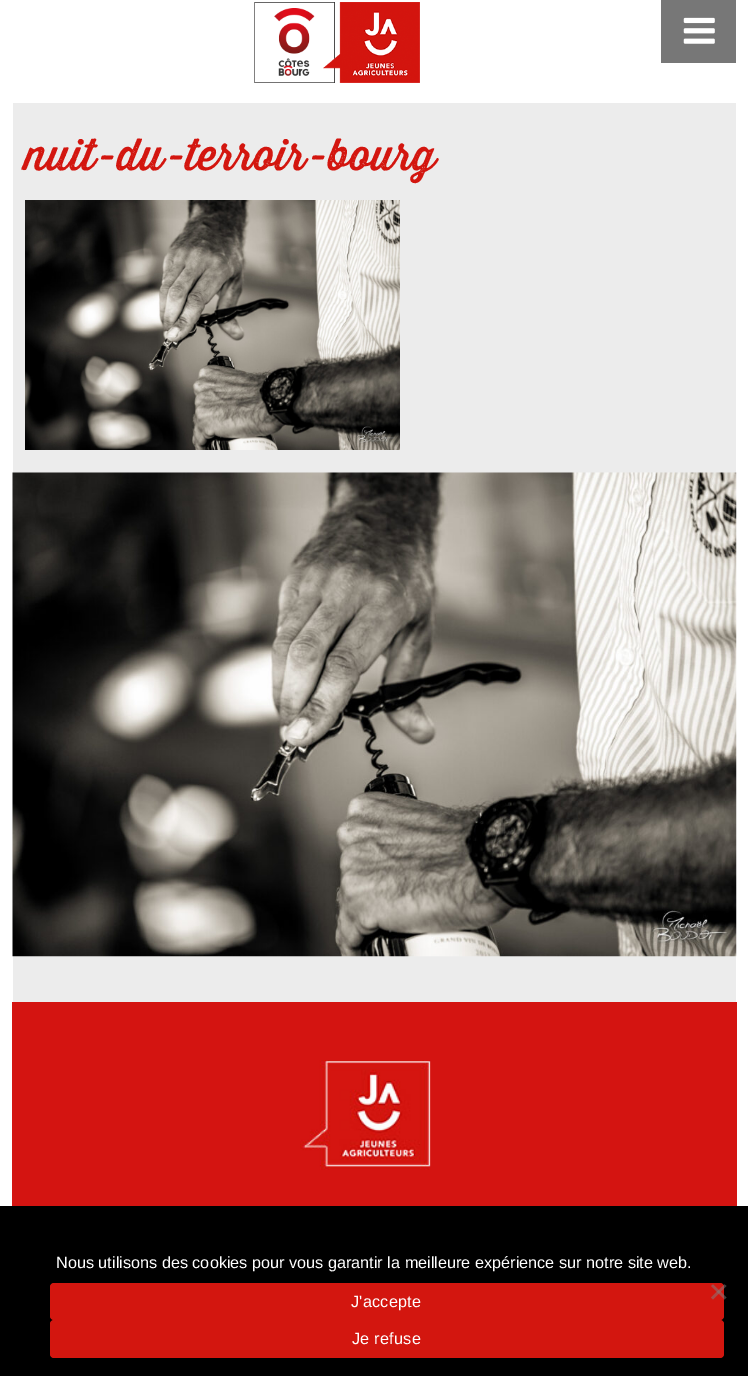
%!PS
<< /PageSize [748 1376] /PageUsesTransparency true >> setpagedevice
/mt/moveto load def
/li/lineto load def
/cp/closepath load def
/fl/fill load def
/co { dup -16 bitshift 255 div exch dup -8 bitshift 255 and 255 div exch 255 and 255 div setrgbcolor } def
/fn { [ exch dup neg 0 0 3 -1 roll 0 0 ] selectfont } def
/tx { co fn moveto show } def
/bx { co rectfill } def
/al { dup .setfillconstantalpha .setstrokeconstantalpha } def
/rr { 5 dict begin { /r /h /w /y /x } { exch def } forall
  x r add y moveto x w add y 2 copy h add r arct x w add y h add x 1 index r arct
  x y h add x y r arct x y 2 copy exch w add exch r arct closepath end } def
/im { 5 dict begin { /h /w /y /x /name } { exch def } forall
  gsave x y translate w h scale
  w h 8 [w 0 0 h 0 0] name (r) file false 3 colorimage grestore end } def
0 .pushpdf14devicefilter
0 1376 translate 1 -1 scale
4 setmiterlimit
0 0 748 1376 16#FFFFFF bx
(media/1.raw) 254 2 166 81 im
661 0 75 63 16#777777 bx
(media/2.raw) 683 17 32 27 im
13 103 723 899 16#ECECEC bx
(media/3.raw) 25 200 375 250 im
(media/4.raw) 12 472 725 485 im
12 1002 725 204 16#D41411 bx
(media/5.raw) 300 1060 131 110 im
0 1206 748 170 16#000000 bx
16#D3160F co
50 1283 674 37 4 rr fl
0.5 al
16#808080 co
724.5 1284.5 mt 726.5 1286 li 713 1299.5 li 711 1297.5 li cp fl
711 1286 mt 713 1284.5 li 726.5 1297.5 li 724.5 1299.5 li cp fl
1 al
16#D3160F co
50 1320 674 38 4 rr fl
(nuit-du-terroir-bourg) 25 170 /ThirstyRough-Regular 43.75 16#D3160F tx
(Nous utilisons des cookies pour vous garantir la meilleure expérience sur notre site web.) 56 1268 /LiberationSans-Regular 16.25 16#FFFFFF tx
351 1307 mt .25 0 (J'accepte) ashow
352 1344 mt .25 0 (Je refuse) ashow
.poppdf14devicefilter showpage
